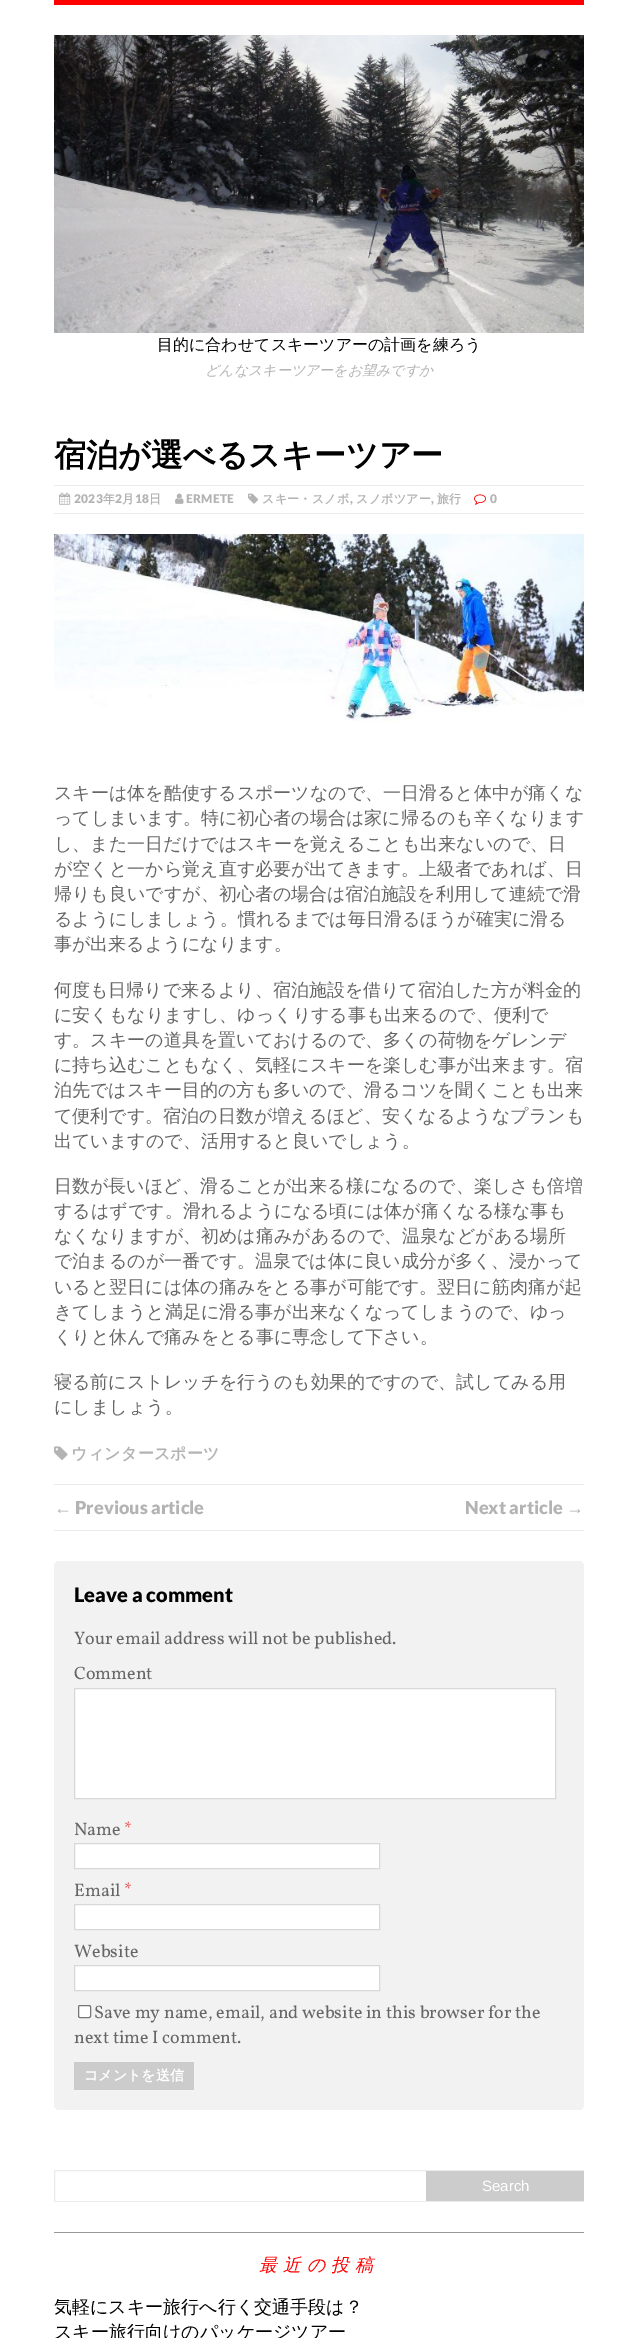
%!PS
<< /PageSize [638 2338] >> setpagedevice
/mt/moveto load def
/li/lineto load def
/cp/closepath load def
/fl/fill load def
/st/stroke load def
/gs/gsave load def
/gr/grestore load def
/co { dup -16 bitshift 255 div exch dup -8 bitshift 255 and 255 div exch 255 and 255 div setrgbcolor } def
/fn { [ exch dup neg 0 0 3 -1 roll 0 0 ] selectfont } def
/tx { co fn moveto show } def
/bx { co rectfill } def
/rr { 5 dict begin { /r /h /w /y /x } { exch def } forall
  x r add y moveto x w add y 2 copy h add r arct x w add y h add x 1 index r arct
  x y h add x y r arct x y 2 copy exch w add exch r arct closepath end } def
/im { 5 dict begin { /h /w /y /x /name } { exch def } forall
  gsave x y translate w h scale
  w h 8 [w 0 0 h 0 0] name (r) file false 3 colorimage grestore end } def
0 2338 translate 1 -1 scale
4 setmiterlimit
0 0 638 2338 16#FFFFFF bx
54 0 530 5 16#FF0000 bx
(media/1.raw) 54 35 530 298 im
54 485 530 1 16#EBEBEB bx
54 513 530 1 16#EBEBEB bx
(media/2.raw) 59 492 12 13 im
(media/3.raw) 175 493 9 11 im
(media/4.raw) 248 493 10 11 im
(media/5.raw) 474 494 12 11 im
(media/6.raw) 54 534 530 189 im
(media/7.raw) 54 1446 14 14 im
54 1484 530 1 16#EBEBEB bx
54 1530 530 1 16#EBEBEB bx
16#F2F2F2 co
54 1561 530 549 5 rr fl
16#FFFFFF co
74.5 1688.5 mt 555.5 1688.5 li 555.5 1798.5 li 74.5 1798.5 li cp gs fl gr
16#D7D8D8 co
st
16#FFFFFF co
74.5 1843.5 mt 379.5 1843.5 li 379.5 1868.5 li 74.5 1868.5 li cp gs fl gr
16#D7D8D8 co
st
16#FFFFFF co
74.5 1904.5 mt 379.5 1904.5 li 379.5 1929.5 li 74.5 1929.5 li cp gs fl gr
16#D7D8D8 co
st
16#FFFFFF co
74.5 1965.5 mt 379.5 1965.5 li 379.5 1990.5 li 74.5 1990.5 li cp gs fl gr
16#D7D8D8 co
st
16#FFFFFF co
78.5 2005.5 12 12 1.5 rr gs fl gr
16#767676 co
st
74 2062 120 28 16#CCCCCC bx
gs
54 2170 530 32 rectclip
16#EBEBEB co
54.5 2170.5 531 31 rectstroke
gr
426 2171 158 30 16#CCCCCC bx
54 2232 530 1 16#999999 bx
(目的に合わせてスキーツアーの計画を練ろう) 157 350 /WenQuanYiZenHei-Medium 16 16#000000 tx
(どんなスキーツアーをお望みですか) 205 375 /WenQuanYiZenHei-MediumItalic 14 16#B3B3B3 tx
(宿泊が選べるスキーツアー) 54 466 /WenQuanYiZenHei-Bold 32 16#000000 tx
/Lato-Black 12 fn
16#B3B3B3 co
74 503 mt .25 0 (2023) ashow
/WenQuanYiZenHei-Bold 12 fn
103 503 mt .25 0 (年) ashow
/Lato-Black 12 fn
115 503 mt .25 0 (2) ashow
/WenQuanYiZenHei-Bold 12 fn
122 503 mt .25 0 (月) ashow
/Lato-Black 12 fn
135 503 mt .25 0 (18) ashow
/WenQuanYiZenHei-Bold 12 fn
149 503 mt .25 0 (日) ashow
/Lato-Black 12 fn
186 503 mt .25 0 (ERMETE) ashow
/WenQuanYiZenHei-Bold 12 fn
262 503 mt .25 0 (スキー・スノボ) ashow
/Lato-Black 12 fn
350 503 mt .25 0 (,) ashow
/WenQuanYiZenHei-Bold 12 fn
356 503 mt .25 0 (スノボツアー) ashow
/Lato-Black 12 fn
431 503 mt .25 0 (,) ashow
/WenQuanYiZenHei-Bold 12 fn
437 503 mt .25 0 (旅行) ashow
/Lato-Black 12 fn
490 503 mt .25 0 (0) ashow
(スキーは体を酷使するスポーツなので、一日滑ると体中が痛くな) 54 799 /WenQuanYiZenHei-Medium 18 16#666666 tx
(ってしまいます。特に初心者の場合は家に帰るのも辛くなります) 54 824 /WenQuanYiZenHei-Medium 18 16#666666 tx
(し、また一日だけではスキーを覚えることも出来ないので、日) 54 850 /WenQuanYiZenHei-Medium 18 16#666666 tx
(が空くと一から覚え直す必要が出てきます。上級者であれば、日) 54 875 /WenQuanYiZenHei-Medium 18 16#666666 tx
(帰りも良いですが、初心者の場合は宿泊施設を利用して連続で滑) 54 900 /WenQuanYiZenHei-Medium 18 16#666666 tx
(るようにしましょう。慣れるまでは毎日滑るほうが確実に滑る) 54 925 /WenQuanYiZenHei-Medium 18 16#666666 tx
(事が出来るようになります。) 54 950 /WenQuanYiZenHei-Medium 18 16#666666 tx
(何度も日帰りで来るより、宿泊施設を借りて宿泊した方が料金的) 54 996 /WenQuanYiZenHei-Medium 18 16#666666 tx
(に安くもなりますし、ゆっくりする事も出来るので、便利で) 54 1021 /WenQuanYiZenHei-Medium 18 16#666666 tx
(す。スキーの道具を置いておけるので、多くの荷物をゲレンデ) 54 1046 /WenQuanYiZenHei-Medium 18 16#666666 tx
(に持ち込むこともなく、気軽にスキーを楽しむ事が出来ます。宿) 54 1071 /WenQuanYiZenHei-Medium 18 16#666666 tx
(泊先ではスキー目的の方も多いので、滑るコツを聞くことも出来) 54 1096 /WenQuanYiZenHei-Medium 18 16#666666 tx
(て便利です。宿泊の日数が増えるほど、安くなるようなプランも) 54 1122 /WenQuanYiZenHei-Medium 18 16#666666 tx
(出ていますので、活用すると良いでしょう。) 54 1147 /WenQuanYiZenHei-Medium 18 16#666666 tx
(日数が長いほど、滑ることが出来る様になるので、楽しさも倍増) 54 1192 /WenQuanYiZenHei-Medium 18 16#666666 tx
(するはずです。滑れるようになる頃には体が痛くなる様な事も) 54 1217 /WenQuanYiZenHei-Medium 18 16#666666 tx
(なくなりますが、初めは痛みがあるので、温泉などがある場所) 54 1242 /WenQuanYiZenHei-Medium 18 16#666666 tx
(で泊まるのが一番です。温泉では体に良い成分が多く、浸かって) 54 1267 /WenQuanYiZenHei-Medium 18 16#666666 tx
(いると翌日には体の痛みをとる事が可能です。翌日に筋肉痛が起) 54 1293 /WenQuanYiZenHei-Medium 18 16#666666 tx
(きてしまうと満足に滑る事が出来なくなってしまうので、ゆっ) 54 1318 /WenQuanYiZenHei-Medium 18 16#666666 tx
(くりと休んで痛みをとる事に専念して下さい。) 54 1343 /WenQuanYiZenHei-Medium 18 16#666666 tx
(寝る前にストレッチを行うのも効果的ですので、試してみる用) 54 1388 /WenQuanYiZenHei-Medium 18 16#666666 tx
(にしましょう。) 54 1413 /WenQuanYiZenHei-Medium 18 16#666666 tx
/WenQuanYiZenHei-Bold 16 fn
16#B3B3B3 co
71 1459 mt .25 0 (ウィンタースポーツ) ashow
(←) 54 1514 /LiberationSans-Bold 18 16#B3B3B3 tx
(Previous article) 75 1514 /Lato-Black 18 16#B3B3B3 tx
(Next article) 465 1514 /Lato-Black 18 16#B3B3B3 tx
(→) 566 1514 /LiberationSans-Bold 18 16#B3B3B3 tx
(Leave a comment) 74 1602 /Lato-Black 20 16#000000 tx
(Your email address will not be published.) 74 1644 /Vollkorn-Regular 18 16#666666 tx
(Comment) 74 1679 /Vollkorn-Regular 18 16#666666 tx
(Name) 74 1835 /Vollkorn-Regular 18 16#666666 tx
(*) 124 1835 /Vollkorn-Regular 18 16#E64946 tx
(Email) 74 1896 /Vollkorn-Regular 18 16#666666 tx
(*) 124 1896 /Vollkorn-Regular 18 16#E64946 tx
(Website) 74 1957 /Vollkorn-Regular 18 16#666666 tx
(Save my name, email, and website in this browser for the) 94 2018 /Vollkorn-Regular 18 16#666666 tx
(next time I comment.) 74 2043 /Vollkorn-Regular 18 16#666666 tx
(コメントを送信) 84 2080 /WenQuanYiZenHei-Bold 14 16#FFFFFF tx
(Search) 482 2191 /LiberationSans-Regular 15 16#FFFFFF tx
/WenQuanYiZenHei-MediumItalic 18 fn
16#FF0000 co
259 2271 mt 6 0 (最近の投稿) ashow
(気軽にスキー旅行へ行く交通手段は？) 54 2313 /WenQuanYiZenHei-Medium 18 16#000000 tx
(スキー旅行向けのパッケージツアー) 54 2338 /WenQuanYiZenHei-Medium 18 16#000000 tx
showpage
